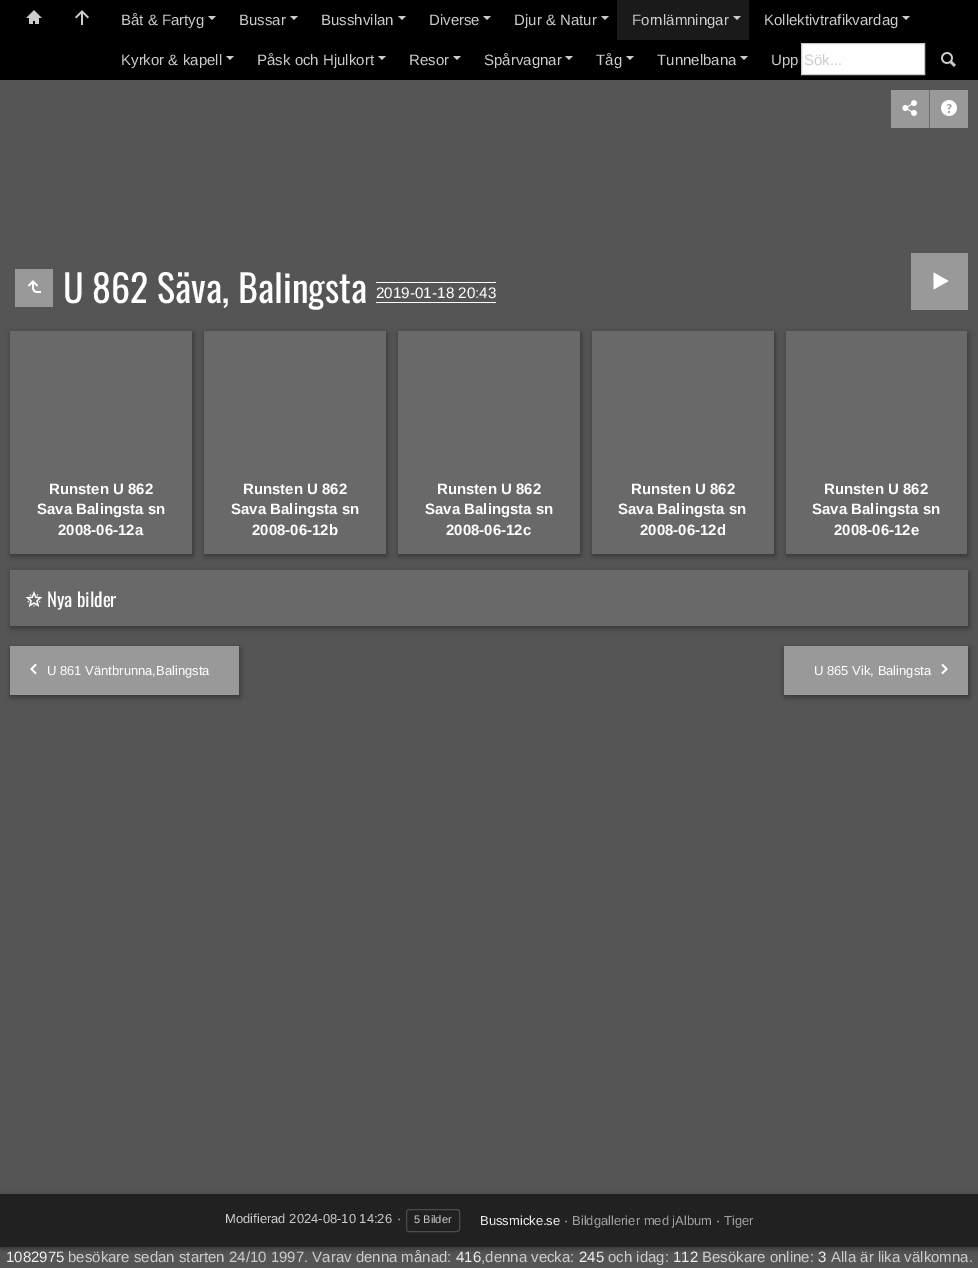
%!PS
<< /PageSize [978 1268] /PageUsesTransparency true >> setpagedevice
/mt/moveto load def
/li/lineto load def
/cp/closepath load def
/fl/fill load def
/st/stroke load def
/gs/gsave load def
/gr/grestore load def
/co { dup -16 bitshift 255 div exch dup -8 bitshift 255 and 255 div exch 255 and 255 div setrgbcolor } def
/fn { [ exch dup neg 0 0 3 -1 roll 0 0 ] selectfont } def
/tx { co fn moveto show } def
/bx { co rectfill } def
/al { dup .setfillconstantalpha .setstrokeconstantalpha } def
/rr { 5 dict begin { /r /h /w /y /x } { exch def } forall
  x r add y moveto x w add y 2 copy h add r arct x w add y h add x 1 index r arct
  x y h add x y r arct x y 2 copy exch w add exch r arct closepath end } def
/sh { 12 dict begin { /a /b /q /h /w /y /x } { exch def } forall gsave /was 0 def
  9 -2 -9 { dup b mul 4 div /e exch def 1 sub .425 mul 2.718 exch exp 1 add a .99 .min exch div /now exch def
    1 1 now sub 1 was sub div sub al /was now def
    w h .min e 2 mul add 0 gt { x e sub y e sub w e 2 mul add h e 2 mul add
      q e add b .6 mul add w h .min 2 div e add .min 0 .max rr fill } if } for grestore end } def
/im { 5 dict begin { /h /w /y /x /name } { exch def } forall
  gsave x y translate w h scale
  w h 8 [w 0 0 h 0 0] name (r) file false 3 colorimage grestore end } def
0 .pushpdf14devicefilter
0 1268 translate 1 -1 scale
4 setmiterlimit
0 0 978 1268 16#555555 bx
0 0 978 80 16#000000 bx
(media/1.raw) 26 10 16 14 im
(media/2.raw) 75 10 14 15 im
16#CCCCCC co
208 16 mt 216 16 li 212 20 li cp fl
290 16 mt 298 16 li 294 20 li cp fl
398 16 mt 406 16 li 402 20 li cp fl
483 16 mt 491 16 li 487 20 li cp fl
601 16 mt 609 16 li 605 20 li cp fl
617 0 132 40 16#1A1A1A bx
16#CCCCCC co
733 16 mt 741 16 li 737 20 li cp fl
902 16 mt 910 16 li 906 20 li cp fl
226 56 mt 234 56 li 230 60 li cp fl
378 56 mt 386 56 li 382 60 li cp fl
453 56 mt 461 56 li 457 60 li cp fl
565 56 mt 573 56 li 569 60 li cp fl
626 56 mt 634 56 li 630 60 li cp fl
740 56 mt 748 56 li 744 60 li cp fl
16#FEFEFE co
801.5 43.5 mt 924.5 43.5 li 924.5 74.5 li 801.5 74.5 li cp gs fl gr
16#CACACA co
st
(media/3.raw) 941 52 15 15 im
15 269 38 38 16#999999 bx
(media/4.raw) 27 280 14 13 im
376 282 120 1 16#FBFBFB bx
376 302 120 1 16#FBFBFB bx
891 90 38 38 16#999999 bx
(media/5.raw) 902 100 15 16 im
930 90 38 38 16#999999 bx
929 90 1 38 16#6B6B6B bx
(media/6.raw) 941 100 16 16 im
911 253 57 57 16#999999 bx
16#FFFFFF co
933.5 272.5 mt 948.5 281 li 933.5 289.5 li cp fl
16#000000 co
11 333 182 223 0 3 .42 sh
10 331 182 223 16#696969 bx
16#000000 co
205 333 182 223 0 3 .42 sh
204 331 182 223 16#696969 bx
16#000000 co
399 333 182 223 0 3 .42 sh
398 331 182 223 16#696969 bx
16#000000 co
593 333 182 223 0 3 .42 sh
592 331 182 223 16#696969 bx
16#000000 co
787 333 181 223 0 3 .42 sh
786 331 181 223 16#696969 bx
16#000000 co
11 572 958 56 0 3 .42 sh
10 570 958 56 16#696969 bx
(media/7.raw) 25 591 18 16 im
16#000000 co
11 648 229 49 0 3 .42 sh
10 646 229 49 16#999999 bx
(media/8.raw) 30 663 7 12 im
16#000000 co
785 648 184 49 0 3 .42 sh
784 646 184 49 16#999999 bx
(media/9.raw) 941 663 7 12 im
16#000000 co
1 1196 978 53 0 3 .42 sh
0 1194 978 53 16#212121 bx
16#4C4C4C co
406.5 1209.5 53 22 2.5 rr st
(Båt & Fartyg) 121 25 /LiberationSans-Regular 15 16#CCCCCC tx
(Bussar) 239 25 /LiberationSans-Regular 15 16#CCCCCC tx
(Busshvilan) 321 25 /LiberationSans-Regular 15 16#CCCCCC tx
(Diverse) 429 25 /LiberationSans-Regular 15 16#CCCCCC tx
(Djur & Natur) 514 25 /LiberationSans-Regular 15 16#CCCCCC tx
(Fornlämningar) 632 25 /LiberationSans-Regular 15 16#CCCCCC tx
(Kollektivtrafikvardag) 764 25 /LiberationSans-Regular 15 16#CCCCCC tx
(Kyrkor & kapell) 121 65 /LiberationSans-Regular 15 16#CCCCCC tx
(Påsk och Hjulkort) 257 65 /LiberationSans-Regular 15 16#CCCCCC tx
(Resor) 409 65 /LiberationSans-Regular 15 16#CCCCCC tx
(Spårvagnar) 484 65 /LiberationSans-Regular 15 16#CCCCCC tx
(Tåg) 596 65 /LiberationSans-Regular 15 16#CCCCCC tx
(Tunnelbana) 657 65 /LiberationSans-Regular 15 16#CCCCCC tx
(Upp) 771 65 /LiberationSans-Regular 15 16#CCCCCC tx
(Sök...) 804 65 /LiberationSans-Regular 15 16#CCCCCC tx
(U 862 Säva, Balingsta) 63 303 /Oswald-Regular 38 16#FFFFFF tx
(2019-01-18 20:43) 376 298 /LiberationSans-Regular 15.25 16#FFFFFF tx
(Runsten U 862) 49 494 /LiberationSans-Bold 15 16#FFFFFF tx
(Sava Balingsta sn) 37 514 /LiberationSans-Bold 15 16#FFFFFF tx
(2008-06-12a) 58 535 /LiberationSans-Bold 15 16#FFFFFF tx
(Runsten U 862) 243 494 /LiberationSans-Bold 15 16#FFFFFF tx
(Sava Balingsta sn) 231 514 /LiberationSans-Bold 15 16#FFFFFF tx
(2008-06-12b) 252 535 /LiberationSans-Bold 15 16#FFFFFF tx
(Runsten U 862) 437 494 /LiberationSans-Bold 15 16#FFFFFF tx
(Sava Balingsta sn) 425 514 /LiberationSans-Bold 15 16#FFFFFF tx
(2008-06-12c) 446 535 /LiberationSans-Bold 15 16#FFFFFF tx
(Runsten U 862) 631 494 /LiberationSans-Bold 15 16#FFFFFF tx
(Sava Balingsta sn) 618 514 /LiberationSans-Bold 15 16#FFFFFF tx
(2008-06-12d) 640 535 /LiberationSans-Bold 15 16#FFFFFF tx
(Runsten U 862) 824 494 /LiberationSans-Bold 15 16#FFFFFF tx
(Sava Balingsta sn) 812 514 /LiberationSans-Bold 15 16#FFFFFF tx
(2008-06-12e) 834 535 /LiberationSans-Bold 15 16#FFFFFF tx
(Nya bilder) 47 607 /Oswald-Regular 19 16#FFFFFF tx
(U 861 Väntbrunna,Balingsta) 47 675 /LiberationSans-Regular 13 16#FFFFFF tx
(U 865 Vik, Balingsta) 814 675 /LiberationSans-Regular 13 16#FFFFFF tx
(Modifierad 2024-08-10 14:26) 225 1223 /LiberationSans-Regular 13 16#CCCCCC tx
(·) 397 1223 /LiberationSans-Regular 13 16#CCCCCC tx
(5 Bilder) 414 1223 /LiberationSans-Regular 11 16#CCCCCC tx
(Bussmicke.se) 480 1225 /LiberationSans-Regular 13 16#EEEEEE tx
(·) 564 1225 /LiberationSans-Regular 13 16#CCCCCC tx
(Bildgallerier med jAlbum) 572 1225 /LiberationSans-Regular 13 16#A1A1A1 tx
(·) 716 1225 /LiberationSans-Regular 13 16#CCCCCC tx
(Tiger) 724 1225 /LiberationSans-Regular 13 16#A1A1A1 tx
(1082975) 6 1262 /LiberationSans-Regular 15 16#EEEEEE tx
(besökare sedan starten 24/10 1997. Varav denna månad:) 68 1262 /LiberationSans-Regular 15 16#CCCCCC tx
(416) 456 1262 /LiberationSans-Regular 15 16#EEEEEE tx
(,denna vecka:) 481 1262 /LiberationSans-Regular 15 16#CCCCCC tx
(245) 579 1262 /LiberationSans-Regular 15 16#EEEEEE tx
(och idag:) 608 1262 /LiberationSans-Regular 15 16#CCCCCC tx
(112) 673 1262 /LiberationSans-Regular 15 16#EEEEEE tx
(Besökare online:) 702 1262 /LiberationSans-Regular 15 16#CCCCCC tx
(3) 818 1262 /LiberationSans-Regular 15 16#EEEEEE tx
(Alla är lika välkomna.) 831 1262 /LiberationSans-Regular 15 16#CCCCCC tx
.poppdf14devicefilter showpage
